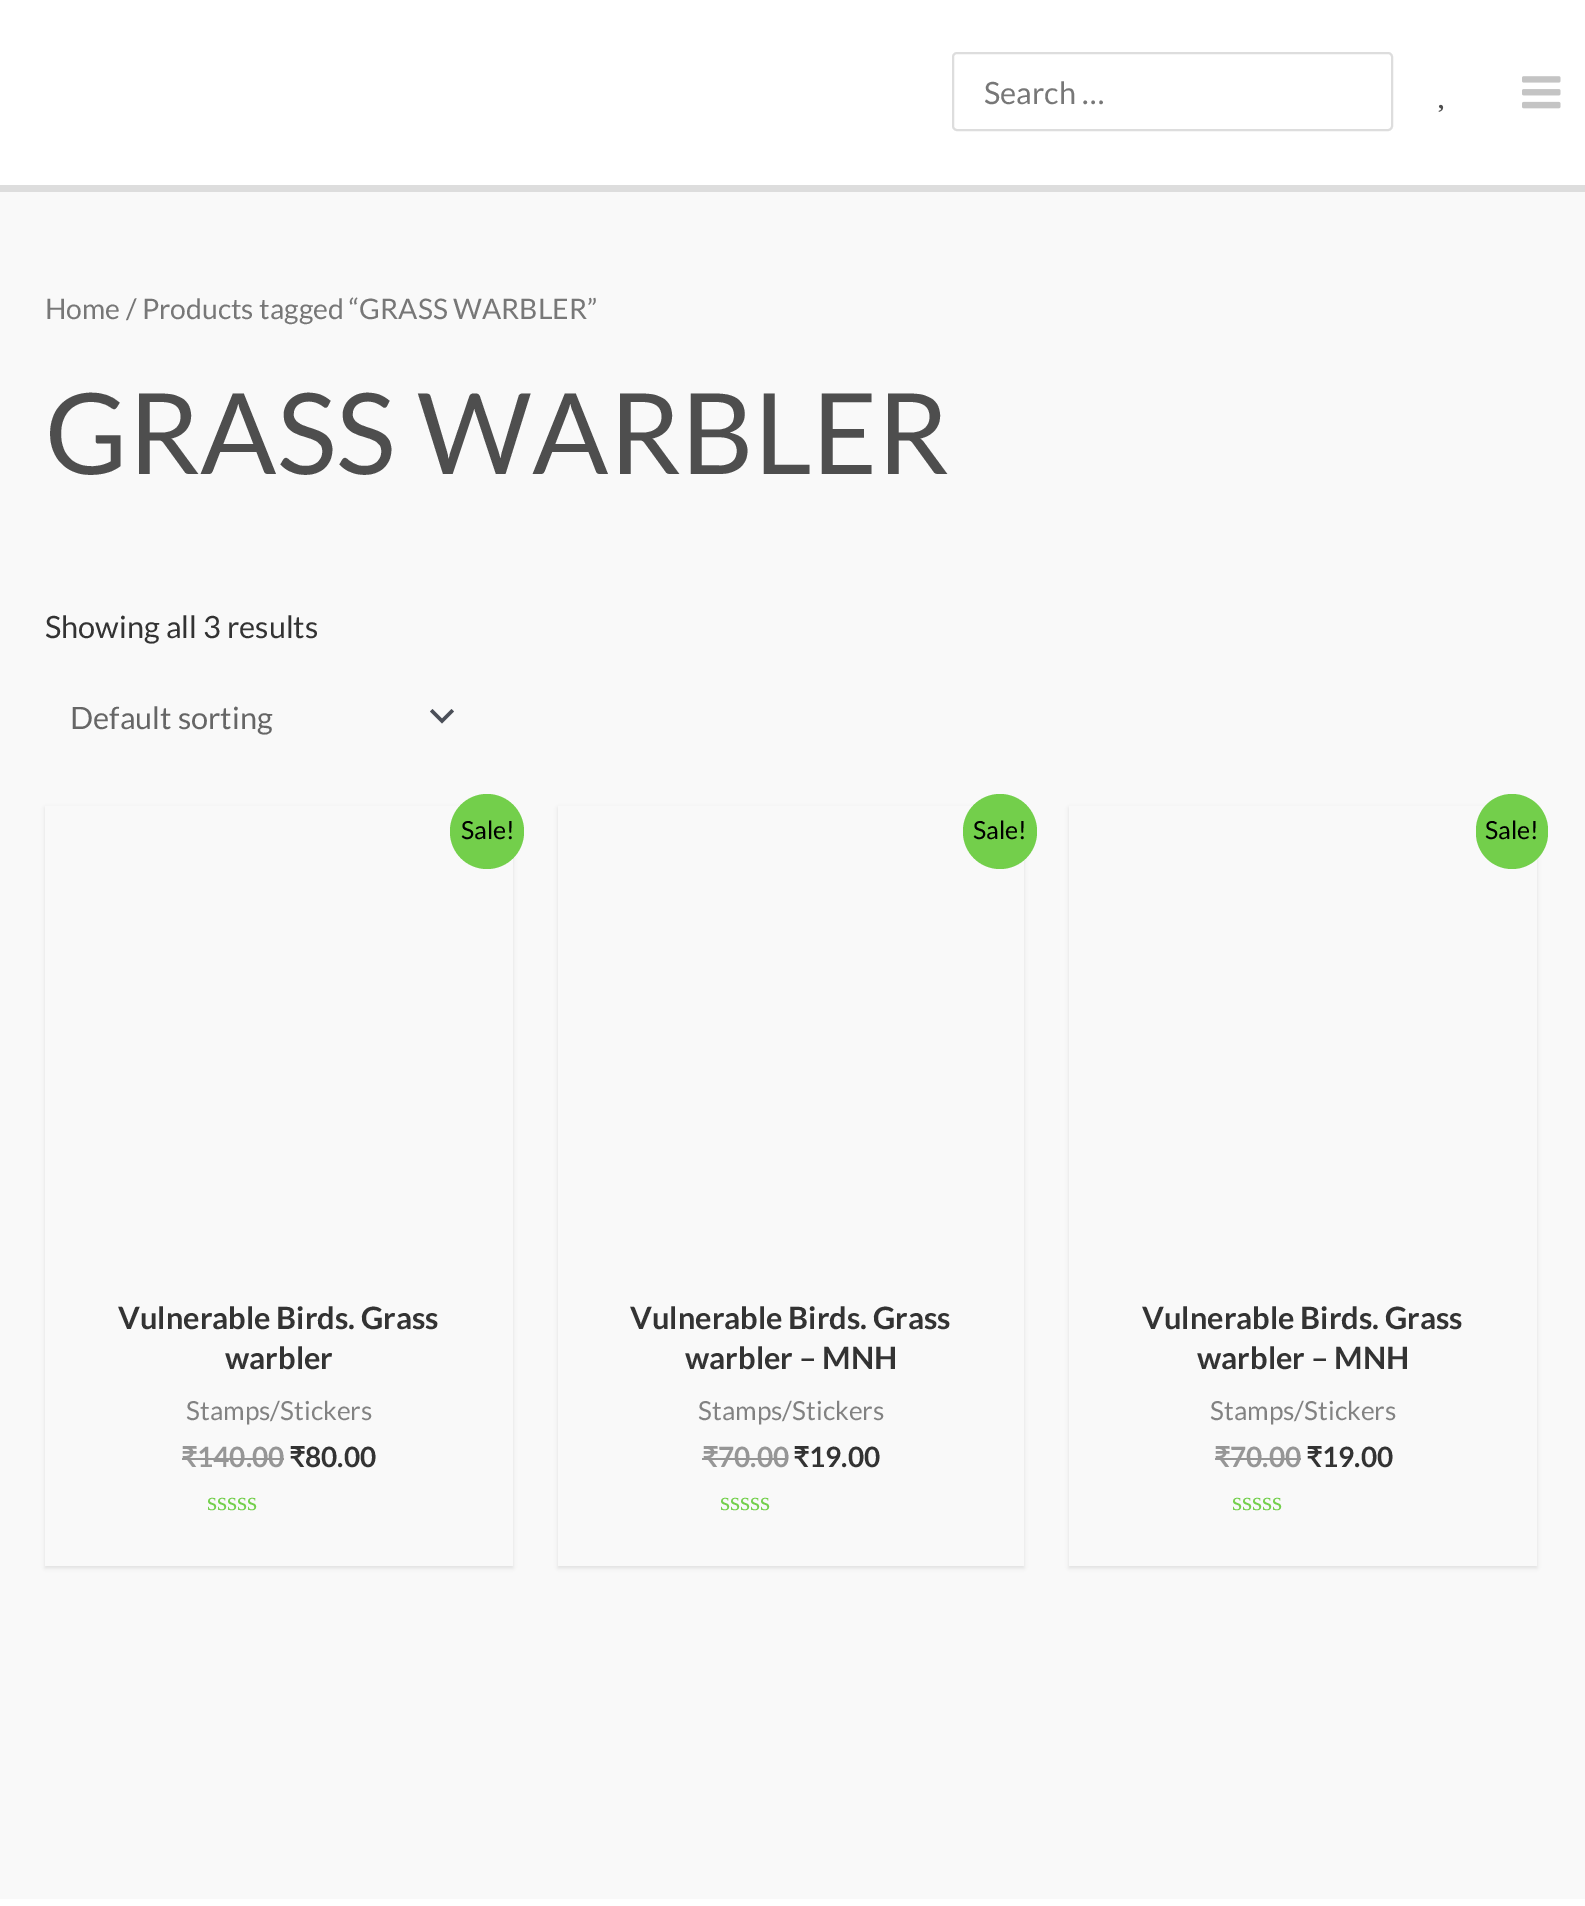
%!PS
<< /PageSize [1585 1906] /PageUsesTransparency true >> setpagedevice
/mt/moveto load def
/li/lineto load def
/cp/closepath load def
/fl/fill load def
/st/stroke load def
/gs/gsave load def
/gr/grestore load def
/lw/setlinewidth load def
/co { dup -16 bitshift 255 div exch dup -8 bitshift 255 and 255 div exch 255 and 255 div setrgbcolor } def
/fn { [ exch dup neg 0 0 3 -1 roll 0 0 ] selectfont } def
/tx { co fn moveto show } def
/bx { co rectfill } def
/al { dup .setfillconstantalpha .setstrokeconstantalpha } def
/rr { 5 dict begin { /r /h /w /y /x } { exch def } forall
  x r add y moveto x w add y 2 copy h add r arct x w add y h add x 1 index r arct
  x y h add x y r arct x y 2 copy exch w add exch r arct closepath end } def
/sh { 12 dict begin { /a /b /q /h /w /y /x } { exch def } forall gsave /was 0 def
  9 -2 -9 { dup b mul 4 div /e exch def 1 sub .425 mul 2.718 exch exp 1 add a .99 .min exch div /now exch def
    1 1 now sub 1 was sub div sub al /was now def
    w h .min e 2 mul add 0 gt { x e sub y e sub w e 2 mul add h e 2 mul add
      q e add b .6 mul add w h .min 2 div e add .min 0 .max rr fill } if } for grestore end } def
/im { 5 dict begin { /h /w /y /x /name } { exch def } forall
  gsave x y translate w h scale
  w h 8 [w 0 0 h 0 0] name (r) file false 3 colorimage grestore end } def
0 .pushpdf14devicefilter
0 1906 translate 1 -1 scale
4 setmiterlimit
0 0 1585 1906 16#F9F9F9 bx
0 0 1585 185 16#FFFFFF bx
0 185 1585 7 16#DDDDDD bx
2 lw
953 53 439 77 4 rr st
(media/1.raw) 1522 76 39 33 im
(media/2.raw) 1438 104 6 8 im
16#4B4F58 co
430 711.5 mt 442 723.5 li 454 711.5 li 451.5 709 li 442 718.5 li 432.5 709 li cp fl
gs
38 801 mt 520 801 li 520 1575 li 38 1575 li cp 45 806 mt 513 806 li 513 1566 li 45 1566 li cp eoclip newpath
16#000000 co
45 808 468 760 0 2 .1 sh
gr
16#73CF4B co
450 794 74 75 37 rr fl
182 1458 16 2 16#969696 bx
198 1458 86 2 16#969696 bx
gs
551 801 mt 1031 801 li 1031 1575 li 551 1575 li cp 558 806 mt 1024 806 li 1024 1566 li 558 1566 li cp eoclip newpath
16#000000 co
558 808 466 760 0 2 .1 sh
gr
16#73CF4B co
963 794 74 75 37 rr fl
702 1458 16 2 16#969696 bx
718 1458 70 2 16#969696 bx
gs
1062 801 mt 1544 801 li 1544 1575 li 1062 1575 li cp 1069 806 mt 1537 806 li 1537 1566 li 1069 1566 li cp eoclip newpath
16#000000 co
1069 808 468 760 0 2 .1 sh
gr
16#73CF4B co
1476 794 72 75 36 rr fl
1215 1458 16 2 16#969696 bx
1231 1458 70 2 16#969696 bx
0 1899 1585 7 16#FFFFFF bx
(Search …) 984 104 /Lato-Regular 30.75 16#777777 tx
(Home / Products tagged “GRASS WARBLER”) 45 319 /Lato-Regular 28.3 16#777777 tx
(GRASS WARBLER) 45 474 /Lato-Regular 112.5 16#4E4E4E tx
(Showing all 3 results) 45 638 /Lato-Regular 30.75 16#333333 tx
(Default sorting) 70 729 /Lato-Regular 30.75 16#666666 tx
(Sale!) 461 839 /Lato-Regular 25 16#000000 tx
(Vulnerable Birds. Grass) 118 1329 /Lato-Bold 30.75 16#333333 tx
(warbler) 225 1369 /Lato-Bold 30.75 16#333333 tx
(Stamps/Stickers) 186 1420 /Lato-Regular 26.25 16#828282 tx
(₹) 181 1467 /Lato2-Bold 28 16#969696 tx
(140.00) 197 1467 /Lato-Bold 28 16#969696 tx
(₹) 289 1467 /Lato2-Bold 28 16#333333 tx
(80.00) 305 1467 /Lato-Bold 28 16#333333 tx
(sssss) 207 1510 /LiberationSerif-Regular 26 16#73CF4B tx
(Sale!) 973 839 /Lato-Regular 25 16#000000 tx
(Vulnerable Birds. Grass) 630 1329 /Lato-Bold 30.75 16#333333 tx
(warbler – MNH) 685 1369 /Lato-Bold 30.75 16#333333 tx
(Stamps/Stickers) 698 1420 /Lato-Regular 26.25 16#828282 tx
(₹) 702 1467 /Lato2-Bold 28 16#969696 tx
(70.00) 718 1467 /Lato-Bold 28 16#969696 tx
(₹) 793 1467 /Lato2-Bold 28 16#333333 tx
(19.00) 809 1467 /Lato-Bold 28 16#333333 tx
(sssss) 720 1510 /LiberationSerif-Regular 26 16#73CF4B tx
(Sale!) 1485 839 /Lato-Regular 25 16#000000 tx
(Vulnerable Birds. Grass) 1142 1329 /Lato-Bold 30.75 16#333333 tx
(warbler – MNH) 1197 1369 /Lato-Bold 30.75 16#333333 tx
(Stamps/Stickers) 1210 1420 /Lato-Regular 26.25 16#828282 tx
(₹) 1214 1467 /Lato2-Bold 28 16#969696 tx
(70.00) 1230 1467 /Lato-Bold 28 16#969696 tx
(₹) 1306 1467 /Lato2-Bold 28 16#333333 tx
(19.00) 1322 1467 /Lato-Bold 28 16#333333 tx
(sssss) 1232 1510 /LiberationSerif-Regular 26 16#73CF4B tx
.poppdf14devicefilter showpage
